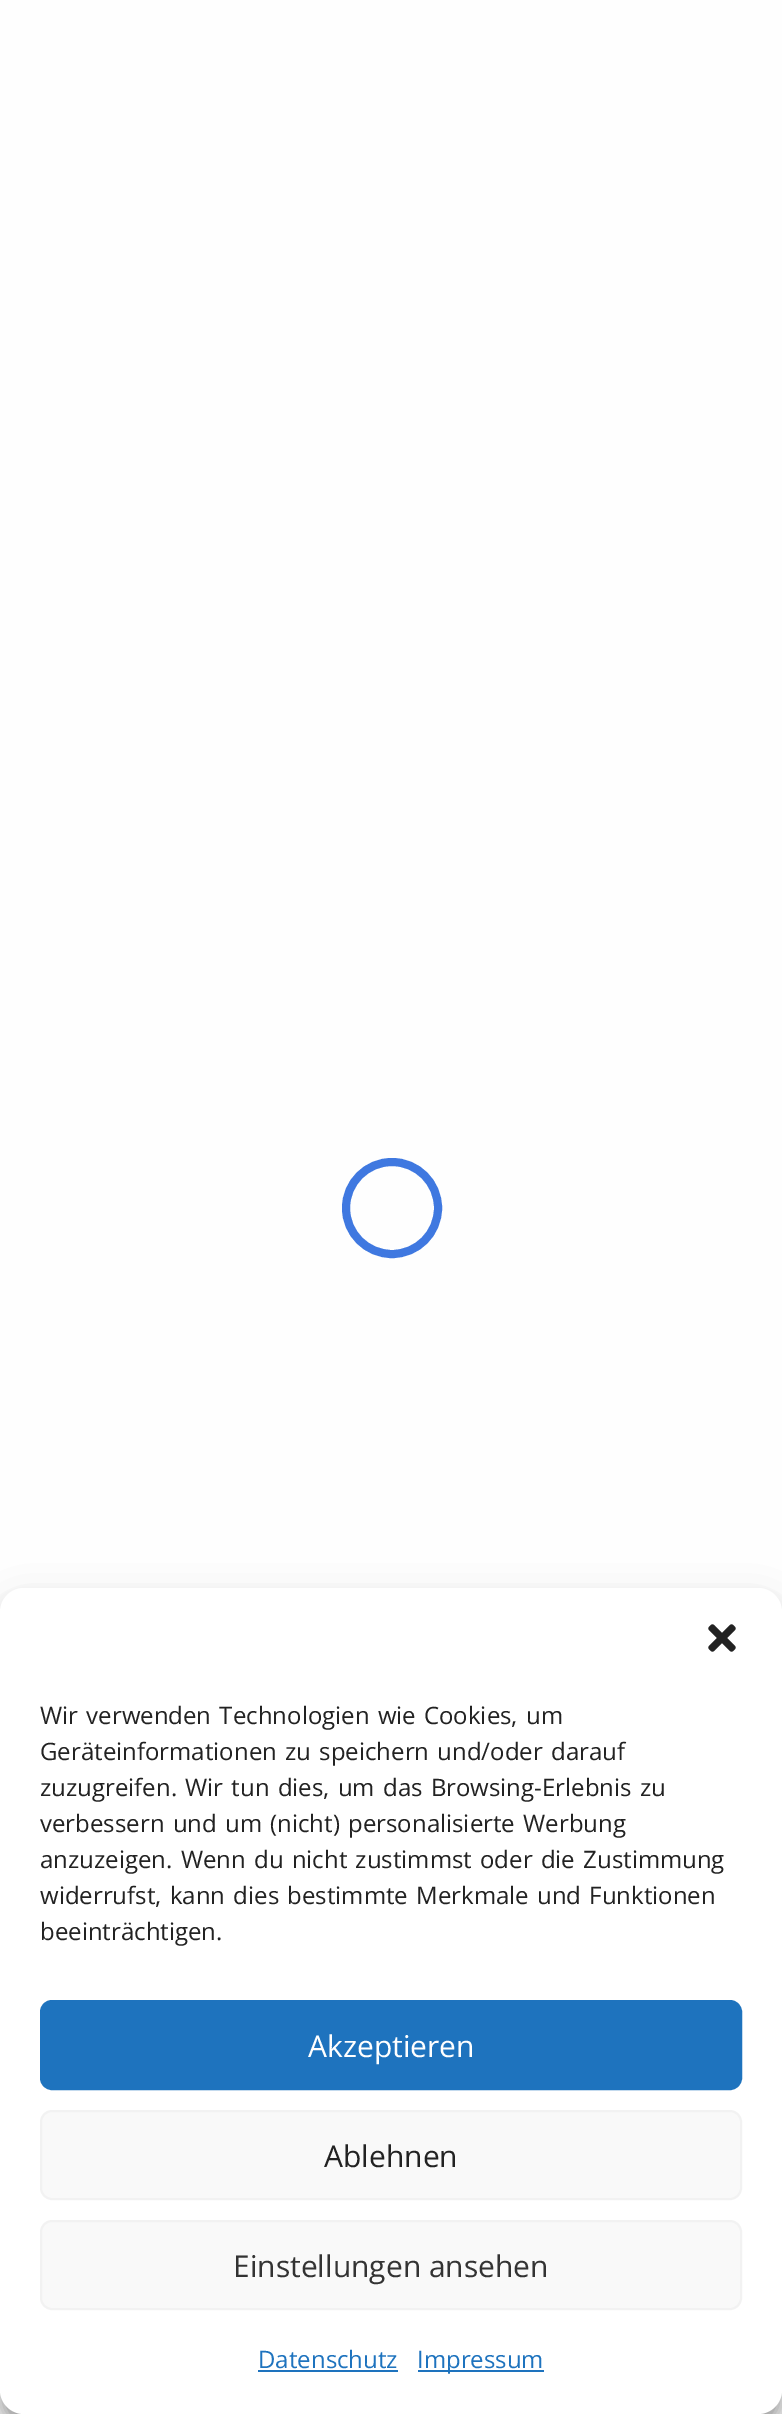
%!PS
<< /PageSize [782 2414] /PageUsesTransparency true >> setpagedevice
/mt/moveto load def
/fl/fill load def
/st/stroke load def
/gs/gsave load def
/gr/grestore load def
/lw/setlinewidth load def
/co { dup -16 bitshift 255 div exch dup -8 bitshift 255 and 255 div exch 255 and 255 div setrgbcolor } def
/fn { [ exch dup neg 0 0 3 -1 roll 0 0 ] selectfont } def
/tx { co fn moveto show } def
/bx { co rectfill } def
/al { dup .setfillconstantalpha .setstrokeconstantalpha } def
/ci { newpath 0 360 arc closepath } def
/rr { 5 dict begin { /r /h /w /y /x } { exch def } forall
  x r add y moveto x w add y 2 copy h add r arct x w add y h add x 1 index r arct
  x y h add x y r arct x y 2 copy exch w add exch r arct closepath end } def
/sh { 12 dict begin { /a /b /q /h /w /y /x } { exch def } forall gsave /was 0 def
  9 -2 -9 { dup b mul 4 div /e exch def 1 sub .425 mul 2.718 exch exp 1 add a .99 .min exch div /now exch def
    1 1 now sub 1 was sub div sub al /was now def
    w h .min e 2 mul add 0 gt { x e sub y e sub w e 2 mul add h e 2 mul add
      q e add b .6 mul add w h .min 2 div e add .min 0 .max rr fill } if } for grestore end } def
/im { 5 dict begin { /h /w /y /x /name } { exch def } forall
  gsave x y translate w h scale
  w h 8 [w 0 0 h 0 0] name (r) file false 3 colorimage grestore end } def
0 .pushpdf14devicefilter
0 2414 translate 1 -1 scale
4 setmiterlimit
0 0 782 2414 16#FEFEFE bx
16#3F78E0 co
8 lw
392 1208 46 ci st
16#000000 co
0 1600 782 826 24 6 .23 sh
0 1608 782 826 24 20 .19 sh
16#FFFFFF co
0 1588 782 826 24 rr fl
(media/1.raw) 708 1624 28 28 im
16#1E73BE co
41 2001 700 88 11 rr gs fl gr
2 lw
st
16#F9F9F9 co
41 2111 700 88 11 rr gs fl gr
16#F2F2F2 co
st
16#F9F9F9 co
41 2221 700 88 11 rr gs fl gr
16#F2F2F2 co
st
258 2370 140 2 16#1E73BE bx
418 2370 126 2 16#1E73BE bx
/OpenSans-Regular 24 fn
16#222222 co
40 1724 mt 2 0 32 (Wir verwenden Technologien wie Cookies, um) widthshow
40 1760 mt 2 0 32 (Geräteinformationen zu speichern und/oder darauf) widthshow
40 1796 mt 2 0 32 (zuzugreifen. Wir tun dies, um das Browsing-Erlebnis zu) widthshow
40 1832 mt 2 0 32 (verbessern und um \(nicht\) personalisierte Werbung) widthshow
40 1868 mt 2 0 32 (anzuzeigen. Wenn du nicht zustimmst oder die Zustimmung) widthshow
40 1904 mt 2 0 32 (widerrufst, kann dies bestimmte Merkmale und Funktionen) widthshow
(beeinträchtigen.) 40 1940 /OpenSans-Regular 24 16#222222 tx
(Akzeptieren) 308 2057 /OpenSans-Regular 30 16#FFFFFF tx
(Ablehnen) 324 2167 /OpenSans-Regular 30 16#222222 tx
(Einstellungen ansehen) 233 2277 /OpenSans-Regular 30 16#333333 tx
(Datenschutz) 258 2368 /OpenSans-Regular 24 16#1E73BE tx
(Impressum) 417 2368 /OpenSans-Regular 24 16#1E73BE tx
.poppdf14devicefilter showpage
